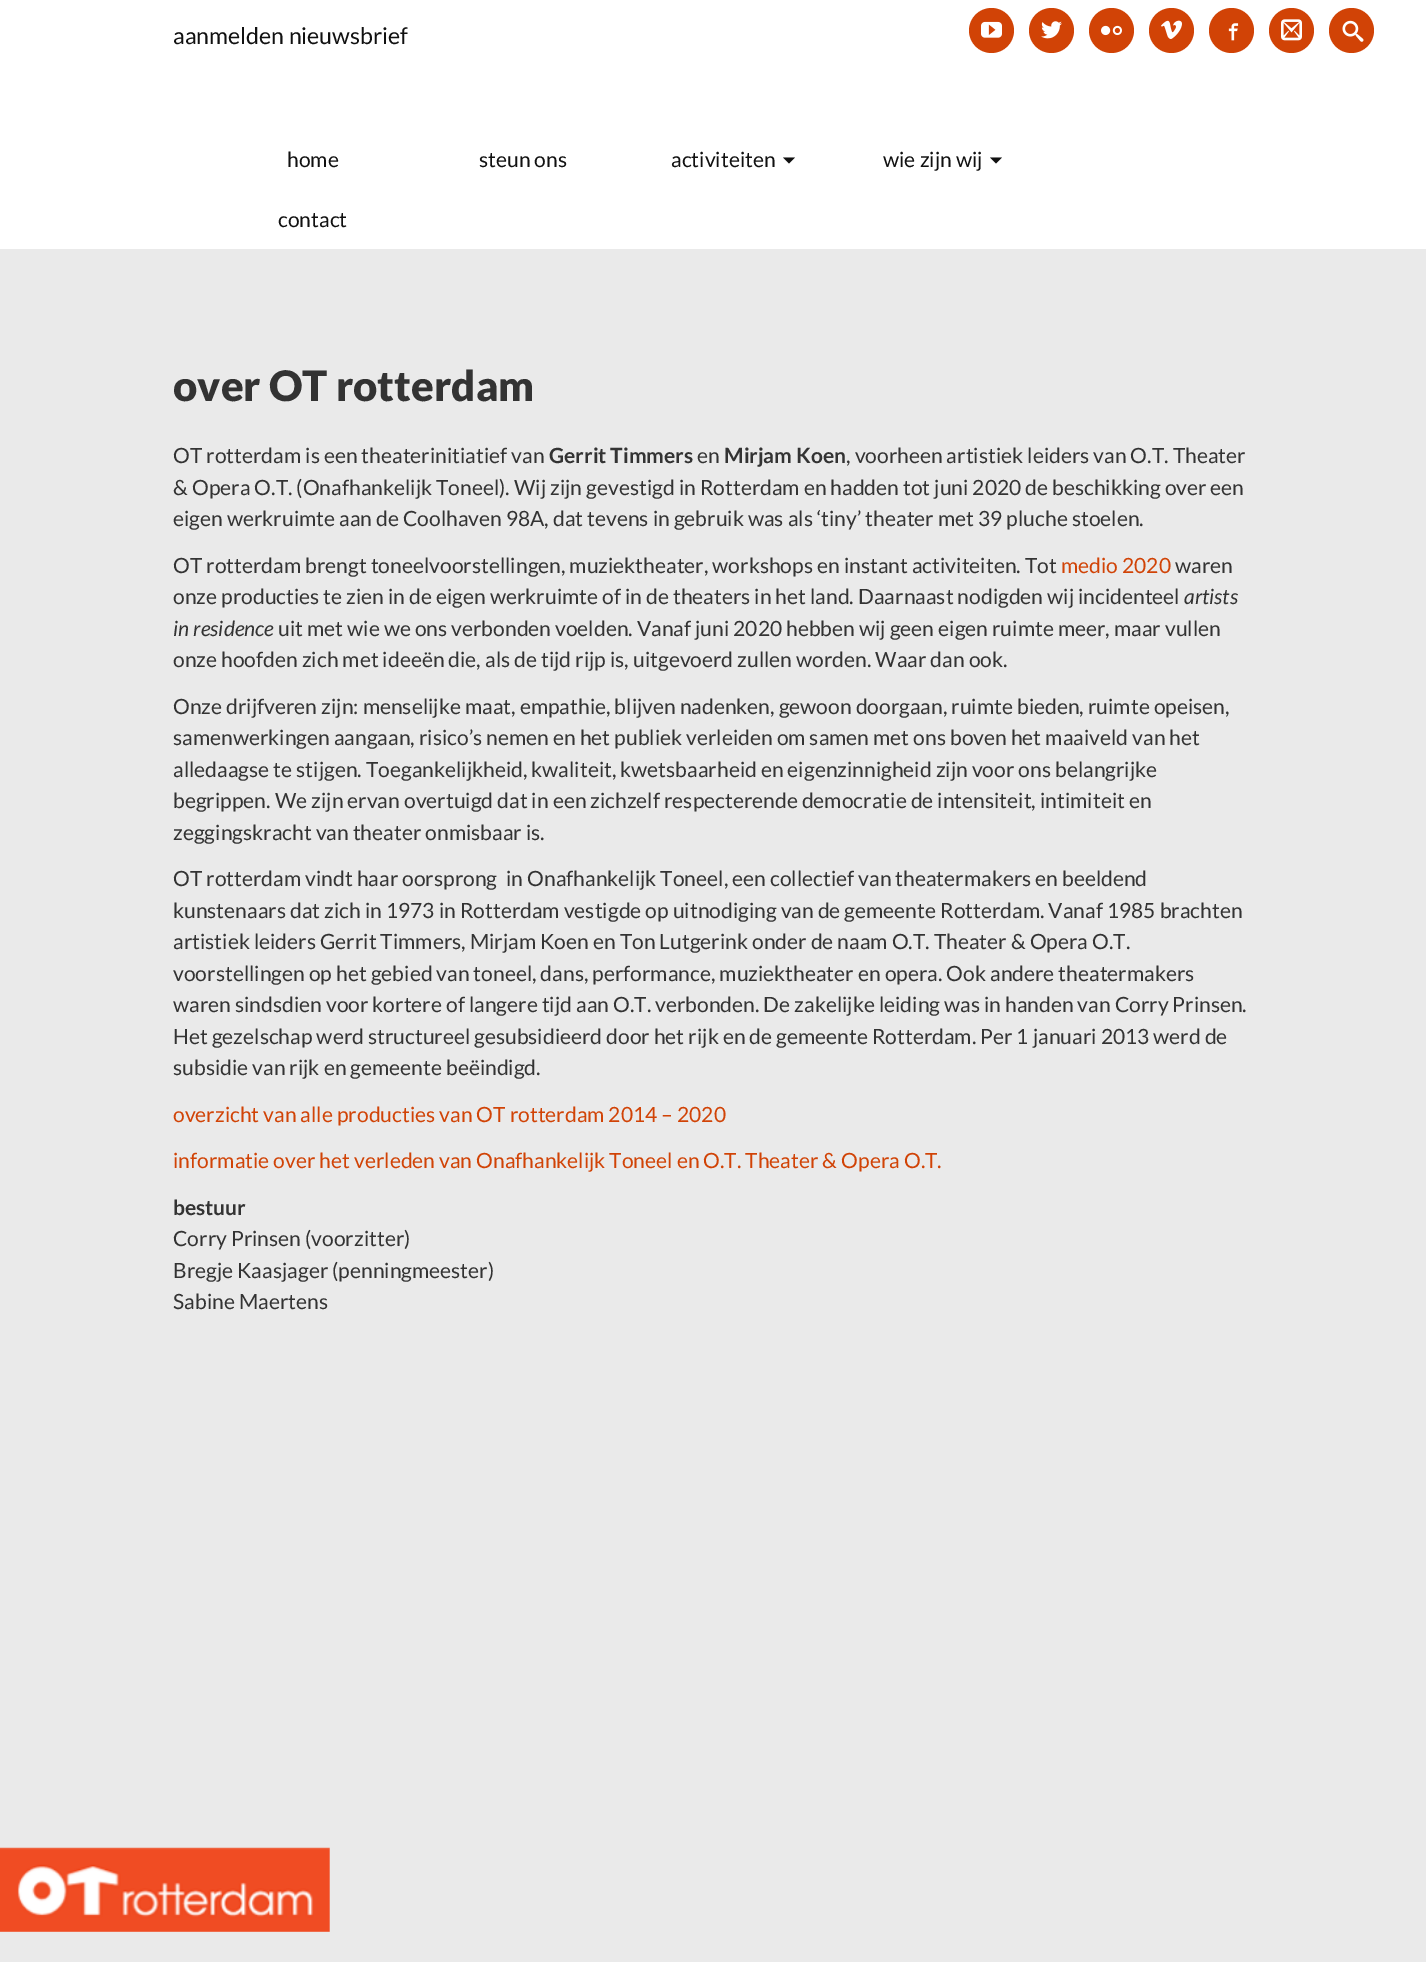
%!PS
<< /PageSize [1426 1962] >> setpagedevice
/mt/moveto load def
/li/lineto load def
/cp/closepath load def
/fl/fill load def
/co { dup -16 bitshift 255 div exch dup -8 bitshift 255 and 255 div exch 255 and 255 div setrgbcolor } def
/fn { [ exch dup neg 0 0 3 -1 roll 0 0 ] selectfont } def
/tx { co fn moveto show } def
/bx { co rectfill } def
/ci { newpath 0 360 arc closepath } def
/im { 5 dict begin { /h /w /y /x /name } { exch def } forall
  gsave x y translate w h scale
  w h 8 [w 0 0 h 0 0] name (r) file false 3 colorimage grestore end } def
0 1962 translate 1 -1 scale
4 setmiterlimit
0 0 1426 1962 16#EAEAEA bx
0 0 1426 249 16#FFFFFF bx
16#111111 co
783 157.5 mt 795 157.5 li 789 163.5 li cp fl
990 157.5 mt 1002 157.5 li 996 163.5 li cp fl
16#D14306 co
991.5 30.5 22.5 ci fl
(media/1.raw) 981 21 21 17 im
1051.5 30.5 22.5 ci fl
(media/2.raw) 1041 21 21 18 im
1111.5 30.5 22.5 ci fl
(media/3.raw) 1101 25 21 11 im
1171.5 30.5 22.5 ci fl
(media/4.raw) 1161 20 21 19 im
1231.5 30.5 22.5 ci fl
(media/5.raw) 1228 23 11 18 im
1291.5 30.5 22.5 ci fl
(media/6.raw) 1281 19 21 22 im
1351.5 30.5 22.5 ci fl
(media/7.raw) 1342 20 22 22 im
(media/8.raw) 0 1847 330 85 im
(aanmelden nieuwsbrief) 173 44 /Lato-Regular 23.1 16#111111 tx
(home) 287 167 /Lato-Regular 21 16#111111 tx
(steun ons) 479 167 /Lato-Regular 21 16#111111 tx
(activiteiten) 671 167 /Lato-Regular 21 16#111111 tx
(wie zijn wij) 883 167 /Lato-Regular 21 16#111111 tx
(contact) 278 227 /Lato-Regular 21 16#111111 tx
(over OT rotterdam) 173 401 /Lato-Black 42 16#333333 tx
(OT rotterdam is een theaterinitiatief van) 173 463 /Lato-Regular 21 16#333333 tx
(Gerrit Timmers) 549 463 /Lato-Bold 21 16#333333 tx
(en) 697 463 /Lato-Regular 21 16#333333 tx
(Mirjam Koen) 724 463 /Lato-Bold 21 16#333333 tx
(, voorheen artistiek leiders van O.T. Theater) 846 463 /Lato-Regular 21 16#333333 tx
(& Opera O.T. \(Onafhankelijk Toneel\). Wij zijn gevestigd in Rotterdam en hadden tot juni 2020 de beschikking over een) 173 495 /Lato-Regular 21 16#333333 tx
(eigen werkruimte aan de Coolhaven 98A, dat tevens in gebruik was als ‘tiny’ theater met 39 pluche stoelen.) 173 526 /Lato-Regular 21 16#333333 tx
(OT rotterdam brengt toneelvoorstellingen, muziektheater, workshops en instant activiteiten. Tot) 173 573 /Lato-Regular 21 16#333333 tx
(medio 2020) 1061 573 /Lato-Regular 21 16#D14306 tx
(waren) 1175 573 /Lato-Regular 21 16#333333 tx
(onze producties te zien in de eigen werkruimte of in de theaters in het land. Daarnaast nodigden wij incidenteel) 173 604 /Lato-Regular 21 16#333333 tx
(artists) 1184 604 /Lato-Italic 21 16#333333 tx
(in residence) 173 636 /Lato-Italic 21 16#333333 tx
(uit met wie we ons verbonden voelden. Vanaf juni 2020 hebben wij geen eigen ruimte meer, maar vullen) 278 636 /Lato-Regular 21 16#333333 tx
(onze hoofden zich met ideeën die, als de tijd rijp is, uitgevoerd zullen worden. Waar dan ook.) 173 667 /Lato-Regular 21 16#333333 tx
(Onze drijfveren zijn: menselijke maat, empathie, blijven nadenken, gewoon doorgaan, ruimte bieden, ruimte opeisen,) 173 714 /Lato-Regular 21 16#333333 tx
(samenwerkingen aangaan, risico’s nemen en het publiek verleiden om samen met ons boven het maaiveld van het) 173 745 /Lato-Regular 21 16#333333 tx
(alledaagse te stijgen. Toegankelijkheid, kwaliteit, kwetsbaarheid en eigenzinnigheid zijn voor ons belangrijke) 173 777 /Lato-Regular 21 16#333333 tx
(begrippen. We zijn ervan overtuigd dat in een zichzelf respecterende democratie de intensiteit, intimiteit en) 173 808 /Lato-Regular 21 16#333333 tx
(zeggingskracht van theater onmisbaar is.) 173 840 /Lato-Regular 21 16#333333 tx
(OT rotterdam vindt haar oorsprong) 173 886 /Lato-Regular 21 16#333333 tx
(in Onafhankelijk Toneel, een collectief van theatermakers en beeldend) 506 886 /Lato-Regular 21 16#333333 tx
(kunstenaars dat zich in 1973 in Rotterdam vestigde op uitnodiging van de gemeente Rotterdam. Vanaf 1985 brachten) 173 918 /Lato-Regular 21 16#333333 tx
(artistiek leiders Gerrit Timmers, Mirjam Koen en Ton Lutgerink onder de naam O.T. Theater & Opera O.T.) 173 949 /Lato-Regular 21 16#333333 tx
(voorstellingen op het gebied van toneel, dans, performance, muziektheater en opera. Ook andere theatermakers) 173 981 /Lato-Regular 21 16#333333 tx
(waren sindsdien voor kortere of langere tijd aan O.T. verbonden. De zakelijke leiding was in handen van Corry Prinsen.) 173 1012 /Lato-Regular 21 16#333333 tx
(Het gezelschap werd structureel gesubsidieerd door het rijk en de gemeente Rotterdam. Per 1 januari 2013 werd de) 173 1044 /Lato-Regular 21 16#333333 tx
(subsidie van rijk en gemeente beëindigd.) 173 1075 /Lato-Regular 21 16#333333 tx
(overzicht van alle producties van OT rotterdam 2014 – 2020) 173 1122 /Lato-Regular 21 16#D14306 tx
(informatie over het verleden van Onafhankelijk Toneel en O.T. Theater & Opera O.T.) 173 1168 /Lato-Regular 21 16#D14306 tx
(bestuur) 173 1215 /Lato-Bold 21 16#333333 tx
(Corry Prinsen \(voorzitter\)) 173 1246 /Lato-Regular 21 16#333333 tx
(Bregje Kaasjager \(penningmeester\)) 173 1278 /Lato-Regular 21 16#333333 tx
(Sabine Maertens) 173 1309 /Lato-Regular 21 16#333333 tx
showpage
